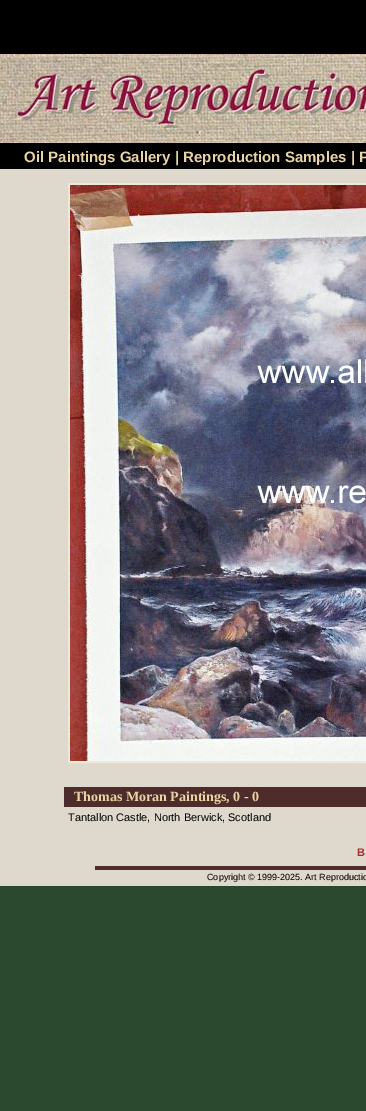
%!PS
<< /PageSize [366 1111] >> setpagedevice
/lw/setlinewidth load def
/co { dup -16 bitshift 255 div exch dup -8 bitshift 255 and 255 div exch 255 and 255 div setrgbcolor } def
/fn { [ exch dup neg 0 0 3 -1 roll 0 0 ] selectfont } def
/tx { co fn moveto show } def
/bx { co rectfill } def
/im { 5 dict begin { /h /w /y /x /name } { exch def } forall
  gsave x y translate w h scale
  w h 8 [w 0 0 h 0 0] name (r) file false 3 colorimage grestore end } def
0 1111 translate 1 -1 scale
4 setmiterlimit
0 0 366 1111 16#2B492F bx
0 0 366 169 16#000000 bx
(media/1.raw) 0 54 366 89 im
(media/2.raw) 0 57 366 84 im
0 169 366 717 16#DFD9CD bx
16#ECE9D8 co
2 lw
69 184 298 578 rectstroke
(media/3.raw) 70 185 296 576 im
64 787 302 20 16#4D2C2B bx
95 866 271 4 16#4D2C2B bx
(Oil Paintings Gallery | Reproduction Samples | P) 24 162 /LiberationSans-Bold 15 16#E9D5A3 tx
(Thomas Moran Paintings, 0 - 0) 74 801 /LiberationSerif-Bold 14 16#E9D5A3 tx
(Tantallon Castle, North Berwick, Scotland) 68 821 /LiberationSans-Regular 11 16#000000 tx
(B) 357 856 /LiberationSans-Bold 11 16#A52A2A tx
(Copyright © 1999-2025. Art Reproductio) 207 880 /LiberationSans-Regular 9 16#000000 tx
showpage
